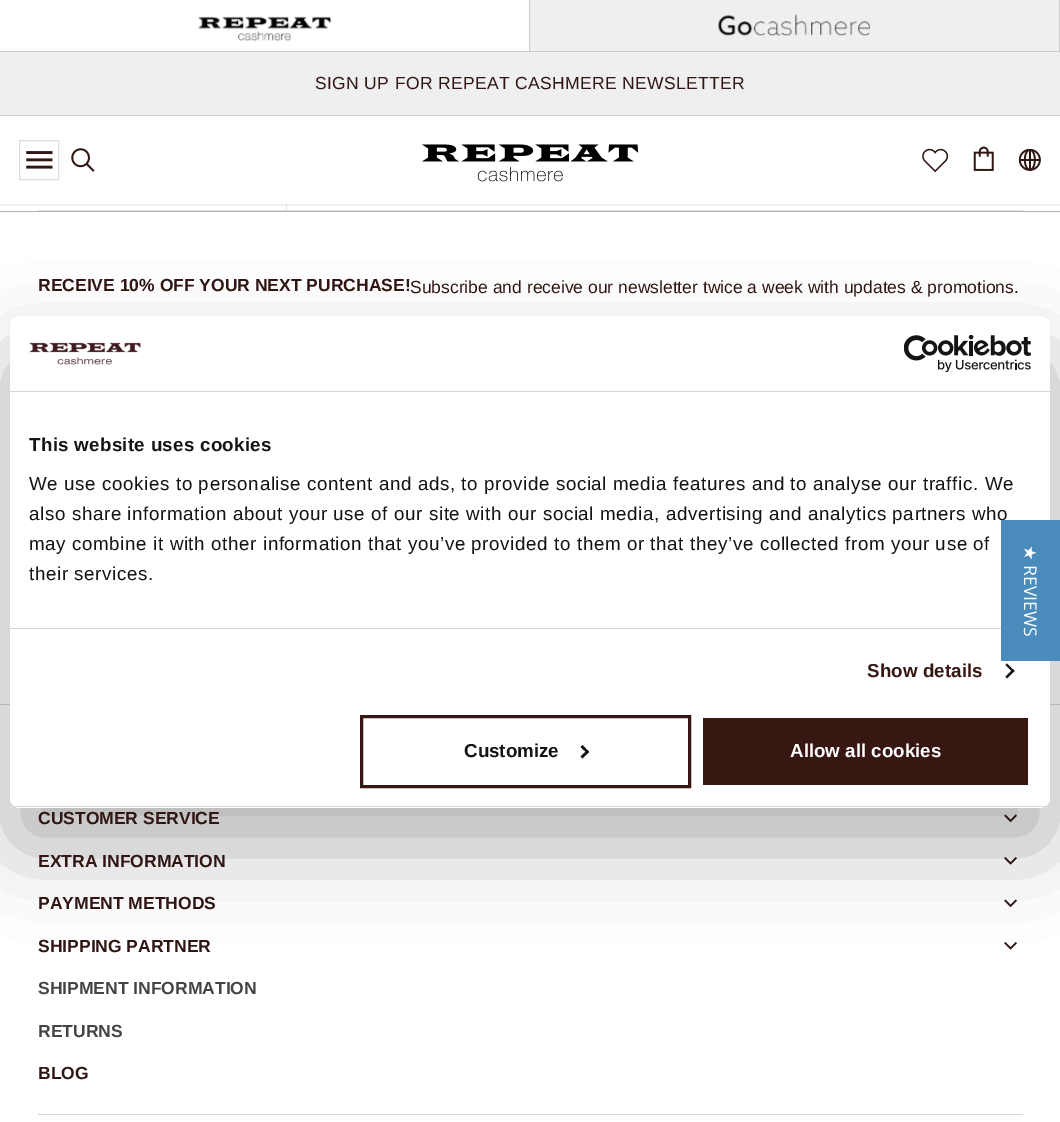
%!PS
<< /PageSize [1060 1122] /PageUsesTransparency true >> setpagedevice
/mt/moveto load def
/li/lineto load def
/cp/closepath load def
/fl/fill load def
/gs/gsave load def
/gr/grestore load def
/lw/setlinewidth load def
/co { dup -16 bitshift 255 div exch dup -8 bitshift 255 and 255 div exch 255 and 255 div setrgbcolor } def
/fn { [ exch dup neg 0 0 3 -1 roll 0 0 ] selectfont } def
/tx { co fn moveto show } def
/bx { co rectfill } def
/al { dup .setfillconstantalpha .setstrokeconstantalpha } def
/rr { 5 dict begin { /r /h /w /y /x } { exch def } forall
  x r add y moveto x w add y 2 copy h add r arct x w add y h add x 1 index r arct
  x y h add x y r arct x y 2 copy exch w add exch r arct closepath end } def
/sh { 12 dict begin { /a /b /q /h /w /y /x } { exch def } forall gsave /was 0 def
  9 -2 -9 { dup b mul 4 div /e exch def 1 sub .425 mul 2.718 exch exp 1 add a .99 .min exch div /now exch def
    1 1 now sub 1 was sub div sub al /was now def
    w h .min e 2 mul add 0 gt { x e sub y e sub w e 2 mul add h e 2 mul add
      q e add b .6 mul add w h .min 2 div e add .min 0 .max rr fill } if } for grestore end } def
/im { 5 dict begin { /h /w /y /x /name } { exch def } forall
  gsave x y translate w h scale
  w h 8 [w 0 0 h 0 0] name (r) file false 3 colorimage grestore end } def
0 .pushpdf14devicefilter
0 1122 translate 1 -1 scale
4 setmiterlimit
0 0 1060 1122 16#FFFFFF bx
286 204 1 6 16#E1E1E1 bx
16#000000 co
-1 115 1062 90 0 1 .1 sh
0 0 1060 115 16#EFEFEF bx
0 115 1060 1 16#CCCCCC bx
0 51 1060 1 16#CCCCCC bx
0 0 529 51 16#FFFFFF bx
529 0 1 51 16#CCCCCC bx
(media/1.raw) 198 16 134 26 im
1059 0 1 51 16#CCCCCC bx
(media/2.raw) 718 14 152 22 im
0 116 1060 88 16#FFFFFF bx
16#DDDDDD co
19.5 140.5 39 39 rectstroke
(media/3.raw) 26 151 27 18 im
(media/4.raw) 71 148 24 24 im
(media/5.raw) 922 148 27 25 im
(media/6.raw) 973 146 21 25 im
(media/7.raw) 1019 149 22 22 im
(media/8.raw) 422 144 217 38 im
38 210 985 1 16#E1E1E1 bx
0 211 1060 1 16#B3B3B3 bx
0 704 1060 1 16#DCD4D1 bx
(media/9.raw) 1004 814 13 9 im
(media/10.raw) 1004 857 13 8 im
(media/9.raw) 1004 899 13 9 im
(media/10.raw) 1004 942 13 8 im
38 1114 985 1 16#DCD4D1 bx
16#000000 co
10 356 1040 492 10 42.5 .3 sh
16#FFFFFF co
10 316 1040 492 10 rr fl
10 391 1040 1 16#D6D6D6 bx
(media/11.raw) 29 342 112 23 im
(media/12.raw) 904 335 127 38 im
10 628 991 1 16#D6D6D6 bx
16#141414 co
1007 663.5 mt 1014.5 671 li 1013 672.5 li 1005.5 665 li cp fl
1013 669 mt 1014.5 671 li 1007 678.5 li 1005.5 676.5 li cp fl
gs
10 316 1040 492 10 rr clip newpath
10 806 1040 1 16#D6D6D6 bx
gr
16#361712 co
3 lw
361.5 716.5 328 70 rectstroke
16#141414 co
582.5 745 mt 589 752 li 587.5 753.5 li 580.5 747 li cp fl
587.5 750 mt 589 752 li 582.5 758.5 li 580.5 756.5 li cp fl
703 718 325 67 16#361712 bx
/LiberationSans-Regular 17.5 fn
16#301613 co
315 89 mt .35 0 (SIGN UP FOR REPEAT CASHMERE NEWSLETTER) ashow
(RECEIVE 10% OFF YOUR NEXT PURCHASE!) 38 291 /LiberationSans-Bold 17.5 16#301613 tx
(Subscribe and receive our newsletter twice a week with updates & promotions.) 410 293 /LiberationSans-Regular 17.5 16#301613 tx
(CUSTOMER SERVICE) 38 824 /LiberationSans-Bold 17.5 16#301613 tx
(EXTRA INFORMATION) 38 867 /LiberationSans-Bold 17.5 16#301613 tx
(PAYMENT METHODS) 38 909 /LiberationSans-Bold 17.5 16#301613 tx
(SHIPPING PARTNER) 38 952 /LiberationSans-Bold 17.5 16#301613 tx
(SHIPMENT INFORMATION) 38 994 /LiberationSans-Bold 17.5 16#444444 tx
(RETURNS) 38 1037 /LiberationSans-Bold 17.5 16#444444 tx
(BLOG) 38 1079 /LiberationSans-Bold 17.5 16#301613 tx
/LiberationSans-Bold 18.75 fn
16#141414 co
29 451 mt .3 0 (This website uses cookies) ashow
/LiberationSans-Regular 18.75 fn
29 490 mt .62 0 (We use cookies to personalise content and ads, to provide social media features and to analyse our traffic. We) ashow
29 520 mt .62 0 (also share information about your use of our site with our social media, advertising and analytics partners who) ashow
29 550 mt .62 0 (may combine it with other information that you’ve provided to them or that they’ve collected from your use of) ashow
29 580 mt .62 0 (their services.) ashow
/LiberationSans-Bold 18.75 fn
16#361712 co
867 677 mt .1 0 (Show details) ashow
(Customize) 464 757 /LiberationSans-Bold 18.75 16#141414 tx
(Allow all cookies) 790 757 /LiberationSans-Bold 18.75 16#FFFFFF tx
1001 520 59 141 16#498CBC bx
/DejaVuSans-Regular 17.5 fn
16#FFFFFF co
gs 1024 545 translate 90 rotate 0 0 mt (★) show gr
/OpenSans-Regular 17.5 fn
gs 1024 565 translate 90 rotate 0 0 mt (REVIEWS) show gr
.poppdf14devicefilter showpage
